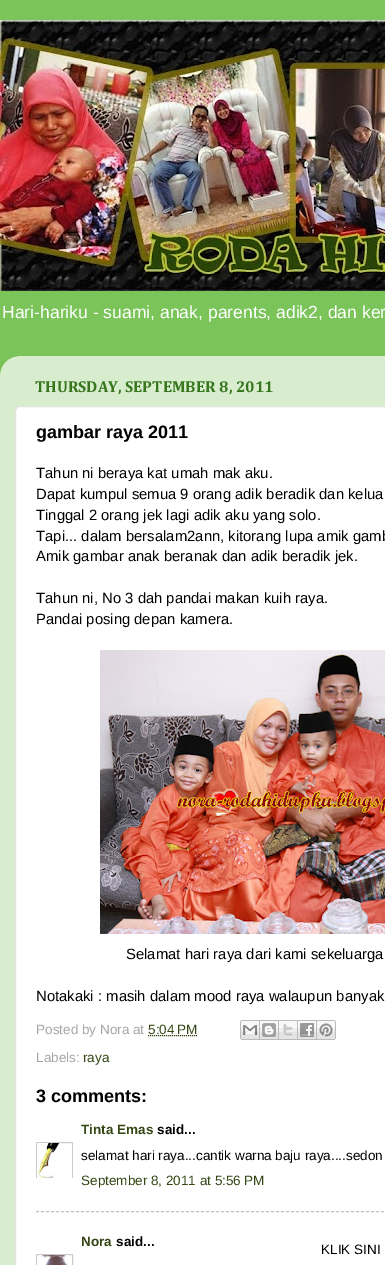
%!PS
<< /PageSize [385 1265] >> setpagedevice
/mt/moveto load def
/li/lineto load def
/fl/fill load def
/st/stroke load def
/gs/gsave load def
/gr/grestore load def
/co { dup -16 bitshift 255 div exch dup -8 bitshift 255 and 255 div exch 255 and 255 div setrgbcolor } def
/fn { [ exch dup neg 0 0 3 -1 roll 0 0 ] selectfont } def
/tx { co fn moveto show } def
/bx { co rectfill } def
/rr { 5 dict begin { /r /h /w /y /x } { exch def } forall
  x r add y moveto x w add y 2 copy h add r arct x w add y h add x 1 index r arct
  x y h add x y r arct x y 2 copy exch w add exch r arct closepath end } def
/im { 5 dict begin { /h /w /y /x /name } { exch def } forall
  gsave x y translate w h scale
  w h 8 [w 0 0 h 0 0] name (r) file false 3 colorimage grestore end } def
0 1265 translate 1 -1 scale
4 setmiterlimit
0 0 385 1265 16#7AC459 bx
(media/1.raw) 0 20 385 271 im
(media/2.raw) 0 356 385 909 im
16#FFFFFF co
15.5 406.5 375 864 4.5 rr gs fl gr
16#E3E3E3 co
st
(media/3.raw) 100 650 285 284 im
16#334613 co
[1 1] 0 setdash
148 1035.5 mt 197 1035.5 li st
(media/4.raw) 240 1020 20 20 im
(media/5.raw) 260 1020 19 20 im
(media/6.raw) 279 1020 19 20 im
(media/7.raw) 298 1020 19 20 im
(media/8.raw) 317 1020 19 20 im
gs
36 1142 37 36 rectclip
16#CCCCCC co
[] 0 setdash
36.5 1142.5 36 36 rectstroke
gr
(media/9.raw) 37 1143 24 35 im
16#C0C0C0 co
[3 2] 0 setdash
36 1211.5 mt 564 1211.5 li st
16#CCCCCC co
[] 0 setdash
36.5 1254.5 36 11 rectstroke
(media/10.raw) 37 1255 31 10 im
(Hari-hariku - suami, anak, parents, adik2, dan ker) 2 318 /LiberationSans-Regular 17.55 16#FFFFFF tx
(THURSDAY, SEPTEMBER 8, 2011) 35 392 /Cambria-Bold 16 16#38761D tx
(gambar raya 2011) 36 438 /LiberationSans-Bold 18 16#000000 tx
(Tahun ni beraya kat umah mak aku.) 36 478 /LiberationSans-Regular 14.85 16#000000 tx
(Dapat kumpul semua 9 orang adik beradik dan kelua) 36 499 /LiberationSans-Regular 14.85 16#000000 tx
(Tinggal 2 orang jek lagi adik aku yang solo.) 36 520 /LiberationSans-Regular 14.85 16#000000 tx
(Tapi... dalam bersalam2ann, kitorang lupa amik gamb) 36 541 /LiberationSans-Regular 14.85 16#000000 tx
(Amik gambar anak beranak dan adik beradik jek.) 36 561 /LiberationSans-Regular 14.85 16#000000 tx
(Tahun ni, No 3 dah pandai makan kuih raya.) 36 603 /LiberationSans-Regular 14.85 16#000000 tx
(Pandai posing depan kamera.) 36 624 /LiberationSans-Regular 14.85 16#000000 tx
(Selamat hari raya dari kami sekeluarga) 126 959 /LiberationSans-Regular 14.85 16#000000 tx
(Notakaki : masih dalam mood raya walaupun banyak) 36 1001 /LiberationSans-Regular 14.85 16#000000 tx
(Posted by Nora at) 36 1034 /LiberationSans-Regular 13.5 16#A6A6A6 tx
(5:04 PM) 148 1034 /LiberationSans-Regular 13.5 16#334613 tx
(Labels:) 36 1062 /LiberationSans-Regular 13.5 16#A6A6A6 tx
(raya) 83 1062 /LiberationSans-Regular 13.5 16#334613 tx
(3 comments:) 36 1102 /LiberationSans-Bold 18 16#000000 tx
(Tinta Emas) 81 1134 /LiberationSans-Bold 13.5 16#334613 tx
(said...) 157 1134 /LiberationSans-Bold 13.5 16#000000 tx
(selamat hari raya...cantik warna baju raya....sedon) 81 1160 /LiberationSans-Regular 13.5 16#000000 tx
(September 8, 2011 at 5:56 PM) 81 1185 /LiberationSans-Regular 13.5 16#334613 tx
(Nora) 81 1246 /LiberationSans-Bold 13.5 16#334613 tx
(said...) 116 1246 /LiberationSans-Bold 13.5 16#000000 tx
(KLIK SINI) 321 1254 /LiberationSans-Regular 13.5 16#000000 tx
showpage
